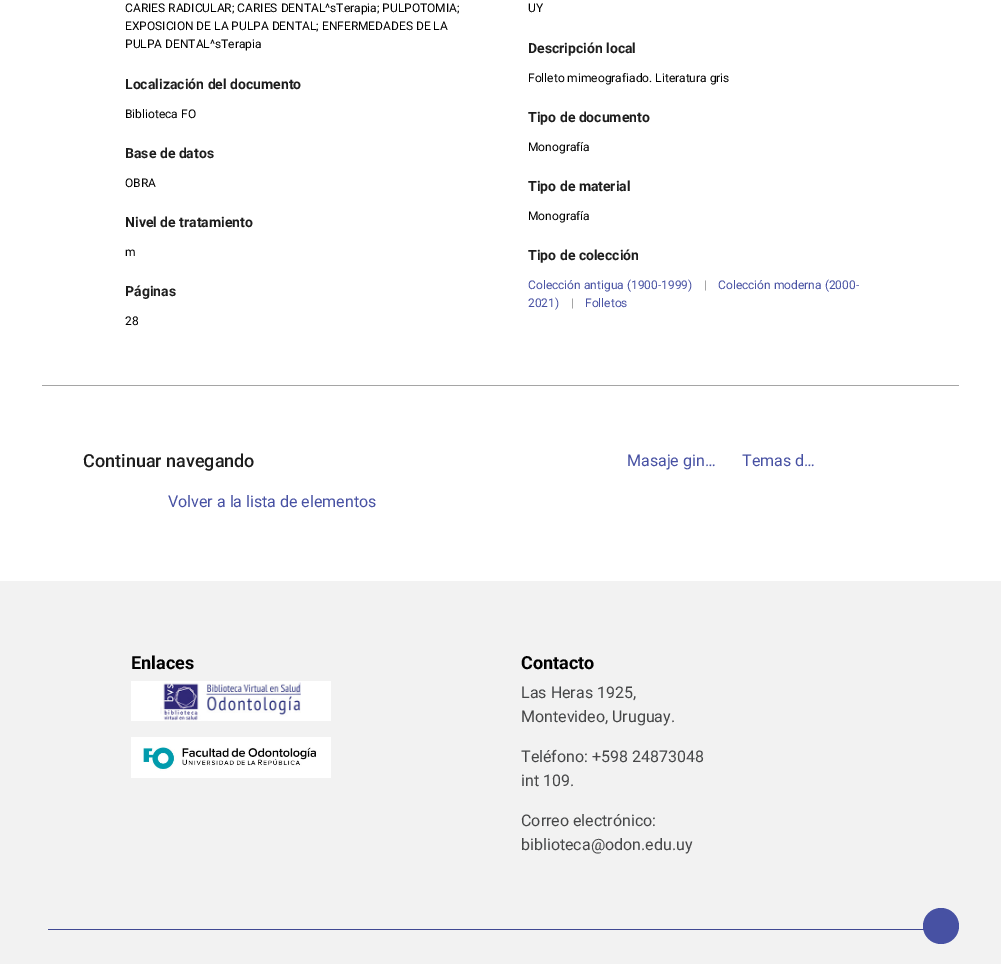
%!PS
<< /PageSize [1001 964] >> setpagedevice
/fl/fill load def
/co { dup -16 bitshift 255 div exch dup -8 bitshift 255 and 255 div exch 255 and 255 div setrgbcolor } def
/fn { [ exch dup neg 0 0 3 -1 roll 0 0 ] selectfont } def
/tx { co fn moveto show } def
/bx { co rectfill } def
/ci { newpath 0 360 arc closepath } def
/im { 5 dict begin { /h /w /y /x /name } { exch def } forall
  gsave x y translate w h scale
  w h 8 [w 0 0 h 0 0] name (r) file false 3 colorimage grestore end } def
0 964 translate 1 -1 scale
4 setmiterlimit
0 0 1001 964 16#FFFFFF bx
42 385 917 1 16#A5A5A5 bx
0 581 1001 383 16#F2F2F2 bx
(media/1.raw) 131 681 200 40 im
(media/2.raw) 131 737 200 41 im
48 929 876 1 16#404993 bx
16#4751A3 co
941 926 18 ci fl
(CARIES RADICULAR; CARIES DENTAL^sTerapia; PULPOTOMIA;) 125 12 /Roboto-Regular 12 16#000000 tx
(EXPOSICION DE LA PULPA DENTAL; ENFERMEDADES DE LA) 125 30 /Roboto-Regular 12 16#000000 tx
(PULPA DENTAL^sTerapia) 125 48 /Roboto-Regular 12 16#000000 tx
(UY) 528 12 /Roboto-Regular 12 16#000000 tx
(Descripción local) 528 53 /Roboto-Bold 14 16#1D1D1D tx
(Folleto mimeografiado. Literatura gris) 528 82 /Roboto-Regular 12 16#000000 tx
(Localización del documento) 125 89 /Roboto-Bold 14 16#1D1D1D tx
(Biblioteca FO) 125 118 /Roboto-Regular 12 16#000000 tx
(Tipo de documento) 528 122 /Roboto-Bold 14 16#1D1D1D tx
(Monografía) 528 151 /Roboto-Regular 12 16#000000 tx
(Base de datos) 125 158 /Roboto-Bold 14 16#1D1D1D tx
(OBRA) 125 187 /Roboto-Regular 12 16#000000 tx
(Tipo de material) 528 191 /Roboto-Bold 14 16#1D1D1D tx
(Monografía) 528 220 /Roboto-Regular 12 16#000000 tx
(Nivel de tratamiento) 125 227 /Roboto-Bold 14 16#1D1D1D tx
(m) 125 256 /Roboto-Regular 12 16#000000 tx
(Páginas) 125 296 /Roboto-Bold 14 16#1D1D1D tx
(28) 125 325 /Roboto-Regular 12 16#000000 tx
(Tipo de colección) 528 260 /Roboto-Bold 14 16#1D1D1D tx
(Colección antigua \(1900-1999\)) 528 289 /Roboto-Regular 12 16#4751A3 tx
(|) 704 289 /Roboto-Regular 12 16#A5A5A5 tx
(Colección moderna \(2000-) 718 289 /Roboto-Regular 12 16#4751A3 tx
(2021\)) 528 307 /Roboto-Regular 12 16#4751A3 tx
(|) 571 307 /Roboto-Regular 12 16#A5A5A5 tx
(Folletos) 585 307 /Roboto-Regular 12 16#4751A3 tx
(Continuar navegando) 83 467 /Roboto-Medium 18 16#1D1D1D tx
(Masaje gin…) 627 466 /Roboto-Regular 16 16#4751A3 tx
(Temas d…) 742 466 /Roboto-Regular 16 16#4751A3 tx
(Volver a la lista de elementos) 168 507 /Roboto-Regular 16 16#4751A3 tx
(Enlaces) 131 669 /Roboto-Bold 18 16#000000 tx
(Contacto) 521 669 /Roboto-Bold 18 16#000000 tx
(Las Heras 1925,) 521 698 /Roboto-Regular 16 16#464748 tx
(Montevideo, Uruguay.) 521 722 /Roboto-Regular 16 16#464748 tx
(Teléfono: +598 24873048) 521 762 /Roboto-Regular 16 16#464748 tx
(int 109.) 521 786 /Roboto-Regular 16 16#464748 tx
(Correo electrónico:) 521 826 /Roboto-Regular 16 16#464748 tx
(biblioteca@odon.edu.uy) 521 850 /Roboto-Regular 16 16#464748 tx
showpage
